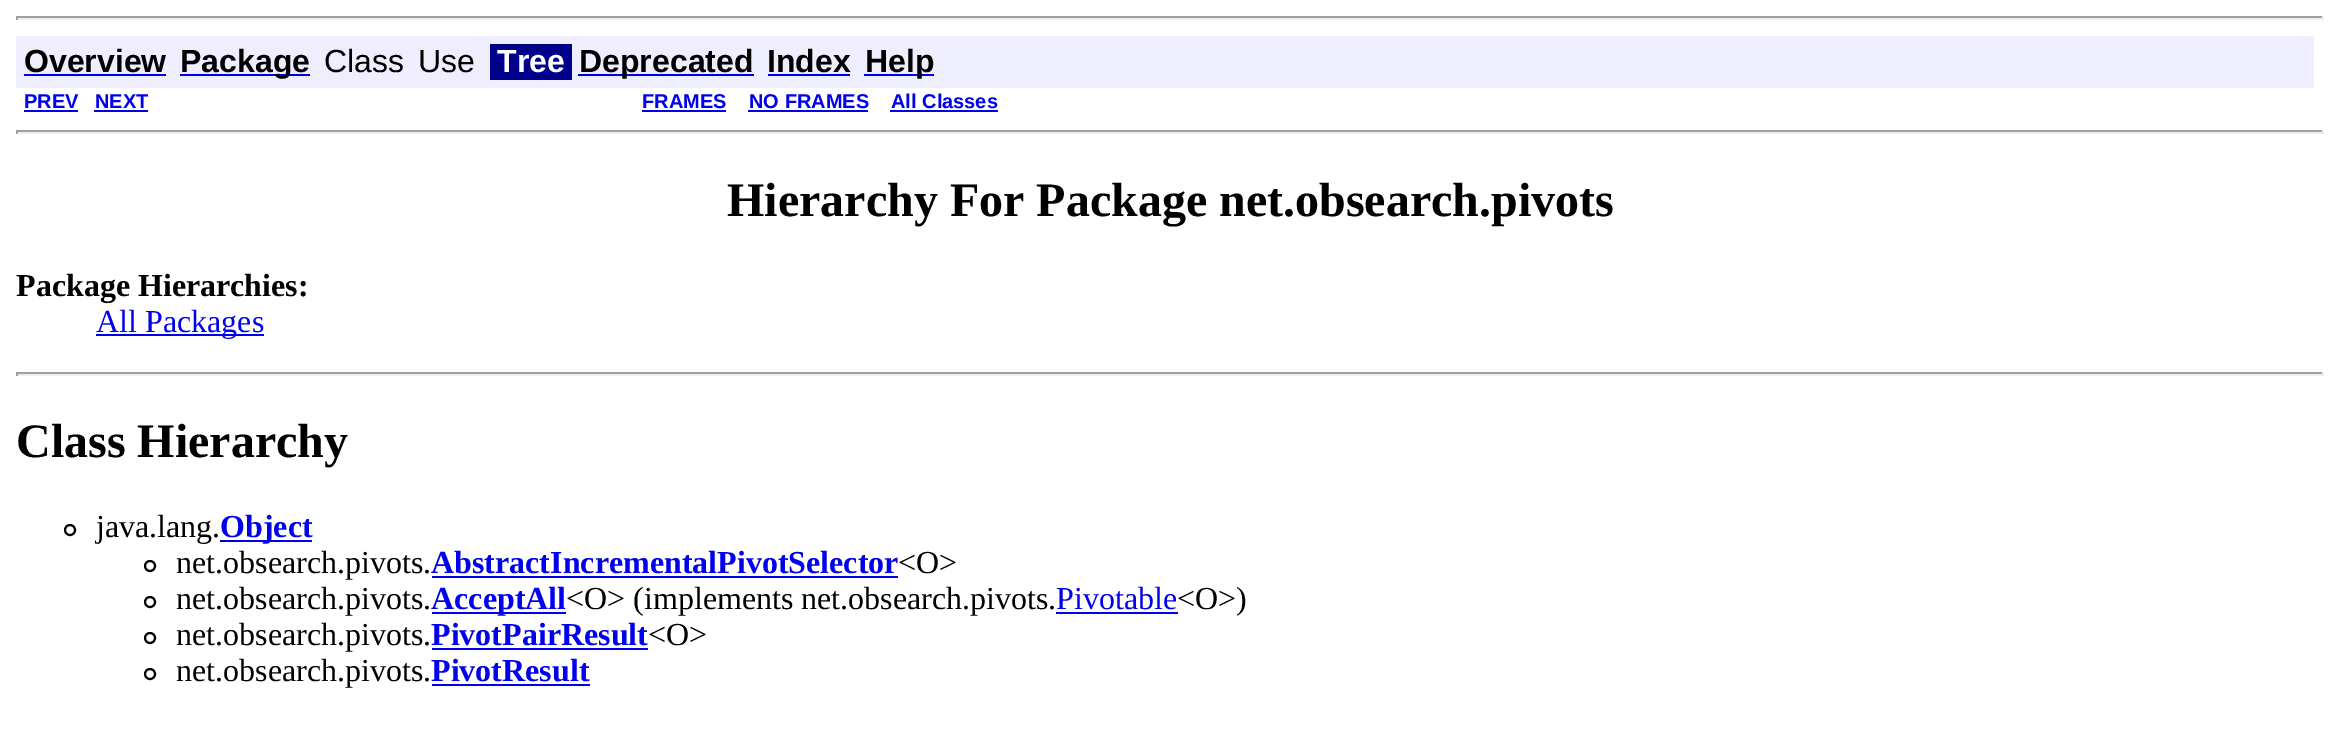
%!PS
<< /PageSize [2339 750] >> setpagedevice
/st/stroke load def
/lw/setlinewidth load def
/co { dup -16 bitshift 255 div exch dup -8 bitshift 255 and 255 div exch 255 and 255 div setrgbcolor } def
/fn { [ exch dup neg 0 0 3 -1 roll 0 0 ] selectfont } def
/tx { co fn moveto show } def
/bx { co rectfill } def
/ci { newpath 0 360 arc closepath } def
0 750 translate 1 -1 scale
4 setmiterlimit
0 0 2339 750 16#FFFFFF bx
16 16 2308 2 16#9F9F9F bx
2322 16 2 4 16#EEEEEE bx
16 18 2308 2 16#EEEEEE bx
16 16 2 4 16#9F9F9F bx
16 36 2298 52 16#EEEEFF bx
24 74 142 2 16#0000EE bx
180 74 130 2 16#0000EE bx
490 44 82 36 16#00008B bx
578 74 176 2 16#0000EE bx
768 74 82 2 16#0000EE bx
864 74 70 2 16#0000EE bx
24 110 54 2 16#0000EE bx
94 110 54 2 16#0000EE bx
642 110 84 2 16#0000EE bx
748 110 120 2 16#0000EE bx
890 110 108 2 16#0000EE bx
16 130 2308 2 16#9F9F9F bx
2322 130 2 4 16#EEEEEE bx
16 132 2308 2 16#EEEEEE bx
16 130 2 4 16#9F9F9F bx
96 334 168 2 16#0000EE bx
16 372 2308 2 16#9F9F9F bx
2322 372 2 4 16#EEEEEE bx
16 374 2308 2 16#EEEEEE bx
16 372 2 4 16#9F9F9F bx
16#000000 co
2 lw
70 530 5 ci st
220 540 92 2 16#0000EE bx
16#000000 co
150 566 5 ci st
432 576 466 2 16#0000EE bx
16#000000 co
150 602 5 ci st
432 612 134 2 16#0000EE bx
1056 612 122 2 16#0000EE bx
16#000000 co
150 638 5 ci st
432 648 216 2 16#0000EE bx
16#000000 co
150 674 5 ci st
432 684 158 2 16#0000EE bx
(Overview) 24 72 /LiberationSans-Bold 32 16#000000 tx
(Package) 180 72 /LiberationSans-Bold 32 16#000000 tx
(Class) 324 72 /LiberationSans-Regular 32 16#000000 tx
(Use) 418 72 /LiberationSans-Regular 32 16#000000 tx
(Tree) 497 72 /LiberationSans-Bold 32 16#FFFFFF tx
(Deprecated) 579 72 /LiberationSans-Bold 32 16#000000 tx
(Index) 767 72 /LiberationSans-Bold 32 16#000000 tx
(Help) 865 72 /LiberationSans-Bold 32 16#000000 tx
(PREV) 24 108 /LiberationSans-Bold 20 16#0000EE tx
(NEXT) 95 108 /LiberationSans-Bold 20 16#0000EE tx
(FRAMES) 642 108 /LiberationSans-Bold 20 16#0000EE tx
(NO FRAMES) 749 108 /LiberationSans-Bold 20 16#0000EE tx
(All Classes) 891 108 /LiberationSans-Bold 20 16#0000EE tx
(Hierarchy For Package net.obsearch.pivots) 727 216 /LiberationSerif-Bold 48 16#000000 tx
(Package Hierarchies:) 16 296 /LiberationSerif-Bold 32 16#000000 tx
(All Packages) 96 332 /LiberationSerif-Regular 32 16#0000EE tx
(Class Hierarchy) 16 457 /LiberationSerif-Bold 48 16#000000 tx
(java.lang.) 96 537 /LiberationSerif-Regular 32 16#000000 tx
(Object) 220 537 /LiberationSerif-Bold 32 16#0000EE tx
(net.obsearch.pivots.) 176 573 /LiberationSerif-Regular 32 16#000000 tx
(AbstractIncrementalPivotSelector) 431 573 /LiberationSerif-Bold 32 16#0000EE tx
(<O>) 898 573 /LiberationSerif-Regular 32 16#000000 tx
(net.obsearch.pivots.) 176 609 /LiberationSerif-Regular 32 16#000000 tx
(AcceptAll) 431 609 /LiberationSerif-Bold 32 16#0000EE tx
(<O> \(implements net.obsearch.pivots.) 566 609 /LiberationSerif-Regular 32 16#000000 tx
(Pivotable) 1056 609 /LiberationSerif-Regular 32 16#0000EE tx
(<O>\)) 1177 609 /LiberationSerif-Regular 32 16#000000 tx
(net.obsearch.pivots.) 176 645 /LiberationSerif-Regular 32 16#000000 tx
(PivotPairResult) 431 645 /LiberationSerif-Bold 32 16#0000EE tx
(<O>) 648 645 /LiberationSerif-Regular 32 16#000000 tx
(net.obsearch.pivots.) 176 681 /LiberationSerif-Regular 32 16#000000 tx
(PivotResult) 431 681 /LiberationSerif-Bold 32 16#0000EE tx
showpage
